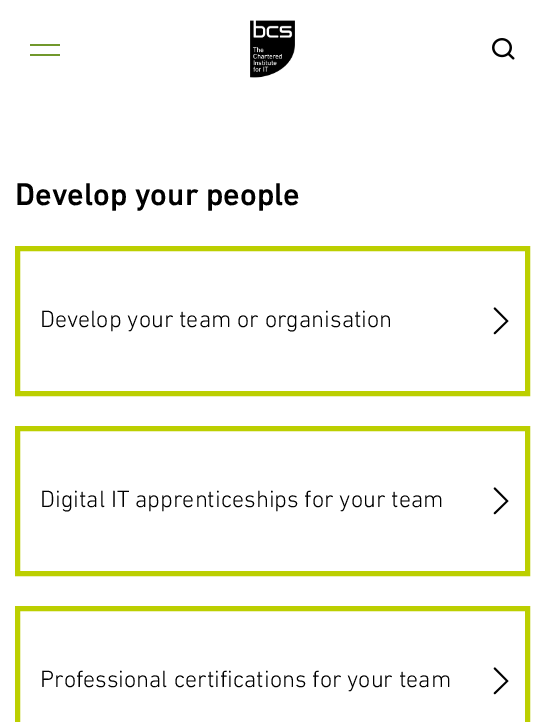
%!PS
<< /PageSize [545 722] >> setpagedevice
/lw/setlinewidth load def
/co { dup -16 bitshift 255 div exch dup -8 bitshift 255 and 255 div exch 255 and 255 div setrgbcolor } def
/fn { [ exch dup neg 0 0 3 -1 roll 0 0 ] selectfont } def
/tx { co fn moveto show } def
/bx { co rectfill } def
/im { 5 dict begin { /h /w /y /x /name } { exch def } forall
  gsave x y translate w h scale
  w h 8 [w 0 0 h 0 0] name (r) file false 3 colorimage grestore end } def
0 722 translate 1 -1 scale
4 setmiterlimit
0 0 545 722 16#FFFFFF bx
30 44 30 2 16#71982C bx
30 54 30 2 16#71982C bx
(media/1.raw) 250 20 45 58 im
(media/2.raw) 492 38 23 22 im
16#BCCF00 co
5 lw
17.5 248.5 510 145 rectstroke
(media/3.raw) 493 307 16 28 im
17.5 428.5 510 145 rectstroke
(media/3.raw) 493 487 16 28 im
17.5 608.5 510 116 rectstroke
(media/3.raw) 493 667 16 28 im
(Develop your people) 15 205 /DINNext-Medium 32 16#000000 tx
(Develop your team or organisation) 40 327 /DINNext-Light 24 16#000000 tx
(Digital IT apprenticeships for your team) 40 507 /DINNext-Light 24 16#000000 tx
(Professional certifications for your team) 40 687 /DINNext-Light 24 16#000000 tx
showpage
